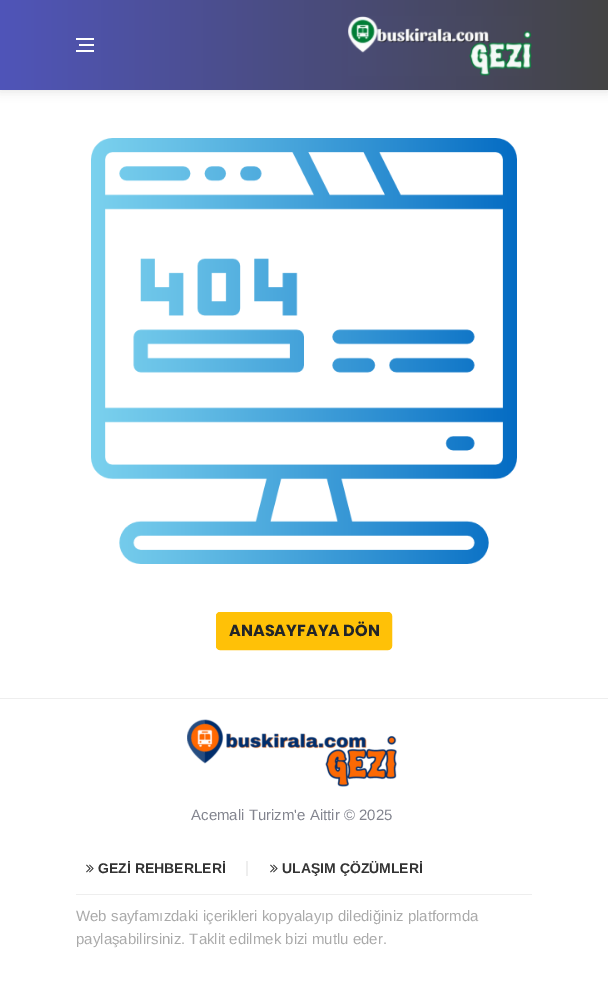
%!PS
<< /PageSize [608 986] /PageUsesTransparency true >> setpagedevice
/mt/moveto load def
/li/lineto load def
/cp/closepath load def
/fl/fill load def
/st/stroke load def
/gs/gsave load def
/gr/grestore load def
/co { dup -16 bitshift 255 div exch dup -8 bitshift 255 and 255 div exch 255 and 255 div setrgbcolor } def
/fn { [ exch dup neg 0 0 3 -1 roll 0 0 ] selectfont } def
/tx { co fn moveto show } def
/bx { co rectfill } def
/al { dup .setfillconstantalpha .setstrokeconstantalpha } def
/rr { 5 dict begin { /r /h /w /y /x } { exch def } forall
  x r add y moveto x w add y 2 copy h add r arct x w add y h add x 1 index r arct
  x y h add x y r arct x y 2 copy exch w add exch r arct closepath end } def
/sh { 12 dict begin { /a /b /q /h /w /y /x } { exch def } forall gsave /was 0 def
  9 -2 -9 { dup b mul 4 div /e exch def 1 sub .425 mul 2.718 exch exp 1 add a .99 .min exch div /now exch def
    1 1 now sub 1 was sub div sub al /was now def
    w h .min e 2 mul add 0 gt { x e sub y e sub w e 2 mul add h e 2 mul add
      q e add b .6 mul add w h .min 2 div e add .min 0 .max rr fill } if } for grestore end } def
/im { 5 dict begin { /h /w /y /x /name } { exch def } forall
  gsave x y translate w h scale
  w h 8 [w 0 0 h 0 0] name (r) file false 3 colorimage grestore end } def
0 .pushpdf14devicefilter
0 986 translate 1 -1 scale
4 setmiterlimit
0 0 608 986 16#FFFFFF bx
16#000000 co
0 2 608 90 0 5 .1 sh
gs 0 0 mt 608 0 li 608 90 li 0 90 li cp clip newpath
<< /ShadingType 2 /ColorSpace /DeviceRGB /Coords [0 45 608 45] /Extend [true true] /Function << /FunctionType 2 /Domain [0 1] /C0 [.314 .333 .725] /C1 [.267 .267 .267] /N 1 >> >> shfill gr
79 44 15 2 16#FFFFFF bx
76 38 18 2 16#FFFFFF bx
76 50 18 2 16#FFFFFF bx
(media/1.raw) 348 16 184 60 im
(media/2.raw) 91 138 426 426 im
16#FFC107 co
216.5 612.5 175 37 3.5 rr gs fl gr
st
0 698 608 1 16#EEEEEE bx
(media/3.raw) 187 719 210 68 im
(media/4.raw) 86 864 8 9 im
246 861 2 15 16#EEEEEE bx
(media/4.raw) 270 864 8 9 im
76 894 456 1 16#EEEEEE bx
(ANASAYFAYA DÖN) 229 636 /Poppins-Bold 16 16#212529 tx
(Acemali Turizm'e Aittir © 2025) 191 820 /LiberationSans-Regular 15 16#83858F tx
(GEZİ REHBERLERİ) 98 873 /LiberationSans-Bold 14 16#333333 tx
(ULAŞIM ÇÖZÜMLERİ) 282 873 /LiberationSans-Bold 14 16#333333 tx
(Web sayfamızdaki içerikleri kopyalayıp dilediğiniz platformda) 76 921 /LiberationSans-Regular 15 16#AAAAAA tx
(paylaşabilirsiniz. Taklit edilmek bizi mutlu eder.) 76 944 /LiberationSans-Regular 15 16#AAAAAA tx
.poppdf14devicefilter showpage
